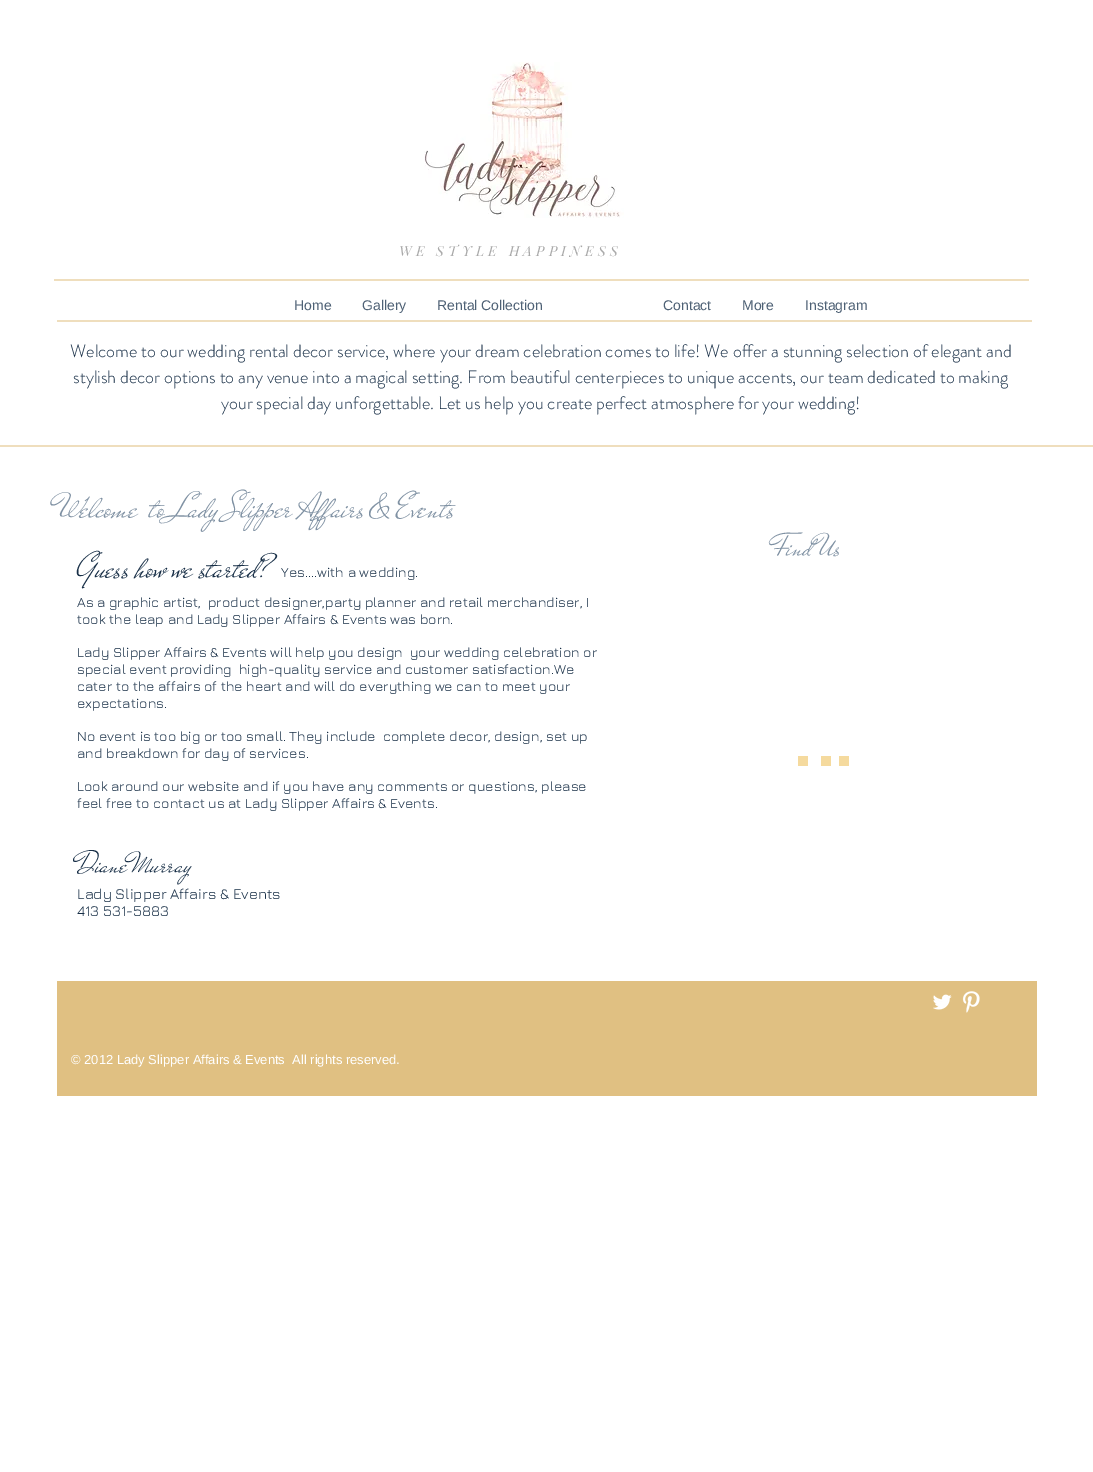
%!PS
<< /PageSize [1093 1472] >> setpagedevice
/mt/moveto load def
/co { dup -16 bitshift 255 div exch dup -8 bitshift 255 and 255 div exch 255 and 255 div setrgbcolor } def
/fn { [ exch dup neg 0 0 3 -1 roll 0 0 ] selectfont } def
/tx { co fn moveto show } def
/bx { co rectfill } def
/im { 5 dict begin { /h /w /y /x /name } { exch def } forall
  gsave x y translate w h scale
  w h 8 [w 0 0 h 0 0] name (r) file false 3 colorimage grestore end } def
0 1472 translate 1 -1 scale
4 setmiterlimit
0 0 1093 1472 16#FFFFFF bx
(media/1.raw) 424 62 200 156 im
54 279 975 2 16#EFDEBD bx
57 320 975 2 16#EFDEBD bx
0 445 1093 2 16#EFDEBD bx
798 756 10 10 16#F5DA9E bx
821 756 10 10 16#F5DA9E bx
839 756 10 10 16#F5DA9E bx
57 981 980 115 16#E0C082 bx
(media/2.raw) 933 994 19 16 im
(media/3.raw) 962 991 18 22 im
/PlayfairDisplay-Italic 14 fn
16#A9A9A9 co
399 256 mt 4.25 0 (WE STYLE HAPPINESS) ashow
(Home) 294 310 /LiberationSans-Regular 14 16#4E6175 tx
(Gallery) 362 310 /LiberationSans-Regular 14 16#4E6175 tx
(Rental Collection) 437 310 /LiberationSans-Regular 14 16#4E6175 tx
(Contact) 663 310 /LiberationSans-Regular 14 16#4E6175 tx
(More) 742 310 /LiberationSans-Regular 14 16#4E6175 tx
(Instagram) 805 310 /LiberationSans-Regular 14 16#4E6175 tx
(Welcome to our wedding rental decor service, where your dream celebration comes to life! We offer a stunning selection of elegant and) 70 357 /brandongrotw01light-Light 18 16#182F47 tx
(stylish decor options to any venue into a magical setting. From beautiful centerpieces to unique accents, our team dedicated to making) 73 383 /brandongrotw01light-Light 18 16#182F47 tx
(your special day unforgettable. Let us help you create perfect atmosphere for your wedding!) 221 409 /brandongrotw01light-Light 18 16#182F47 tx
(Welcome  to Lady Slipper Affairs & Events) 58 517 /MrDeHaviland-Regular 36 16#7F91A3 tx
(Find Us) 773 555 /MrDeHaviland-Regular 32 16#7F91A3 tx
(Guess how we started?) 77 577 /MrDeHaviland-Regular 36 16#182F47 tx
(Yes....with a wedding.) 281 577 /Jura-Regular 14 16#182F47 tx
(As a graphic artist,  product designer,party planner and retail merchandiser, I) 77 607 /Jura-Regular 14 16#182F47 tx
(took the leap and Lady Slipper Affairs & Events was born.) 77 624 /Jura-Regular 14 16#182F47 tx
(Lady Slipper Affairs & Events will help you design  your wedding celebration or) 77 657 /Jura-Regular 14 16#182F47 tx
(special event providing  high-quality service and customer satisfaction.We) 77 674 /Jura-Regular 14 16#182F47 tx
(cater to the affairs of the heart and will do everything we can to meet your) 77 691 /Jura-Regular 14 16#182F47 tx
(expectations.) 77 708 /Jura-Regular 14 16#182F47 tx
(No event is too big or too small. They include  complete decor, design, set up) 77 741 /Jura-Regular 14 16#182F47 tx
(and breakdown for day of services.) 77 758 /Jura-Regular 14 16#182F47 tx
(Look around our website and if you have any comments or questions, please) 77 791 /Jura-Regular 14 16#182F47 tx
(feel free to contact us at Lady Slipper Affairs & Events.) 77 808 /Jura-Regular 14 16#182F47 tx
(Diane Murray) 77 872 /MrDeHaviland-Regular 30 16#182F47 tx
(Lady Slipper Affairs & Events) 77 899 /Jura-Regular 15 16#182F47 tx
(413 531-5883) 77 916 /Jura-Regular 15 16#182F47 tx
(© 2012 Lady Slipper Affairs & Events  All rights reserved.) 71 1064 /LiberationSans-Regular 13 16#FFFFFF tx
showpage
